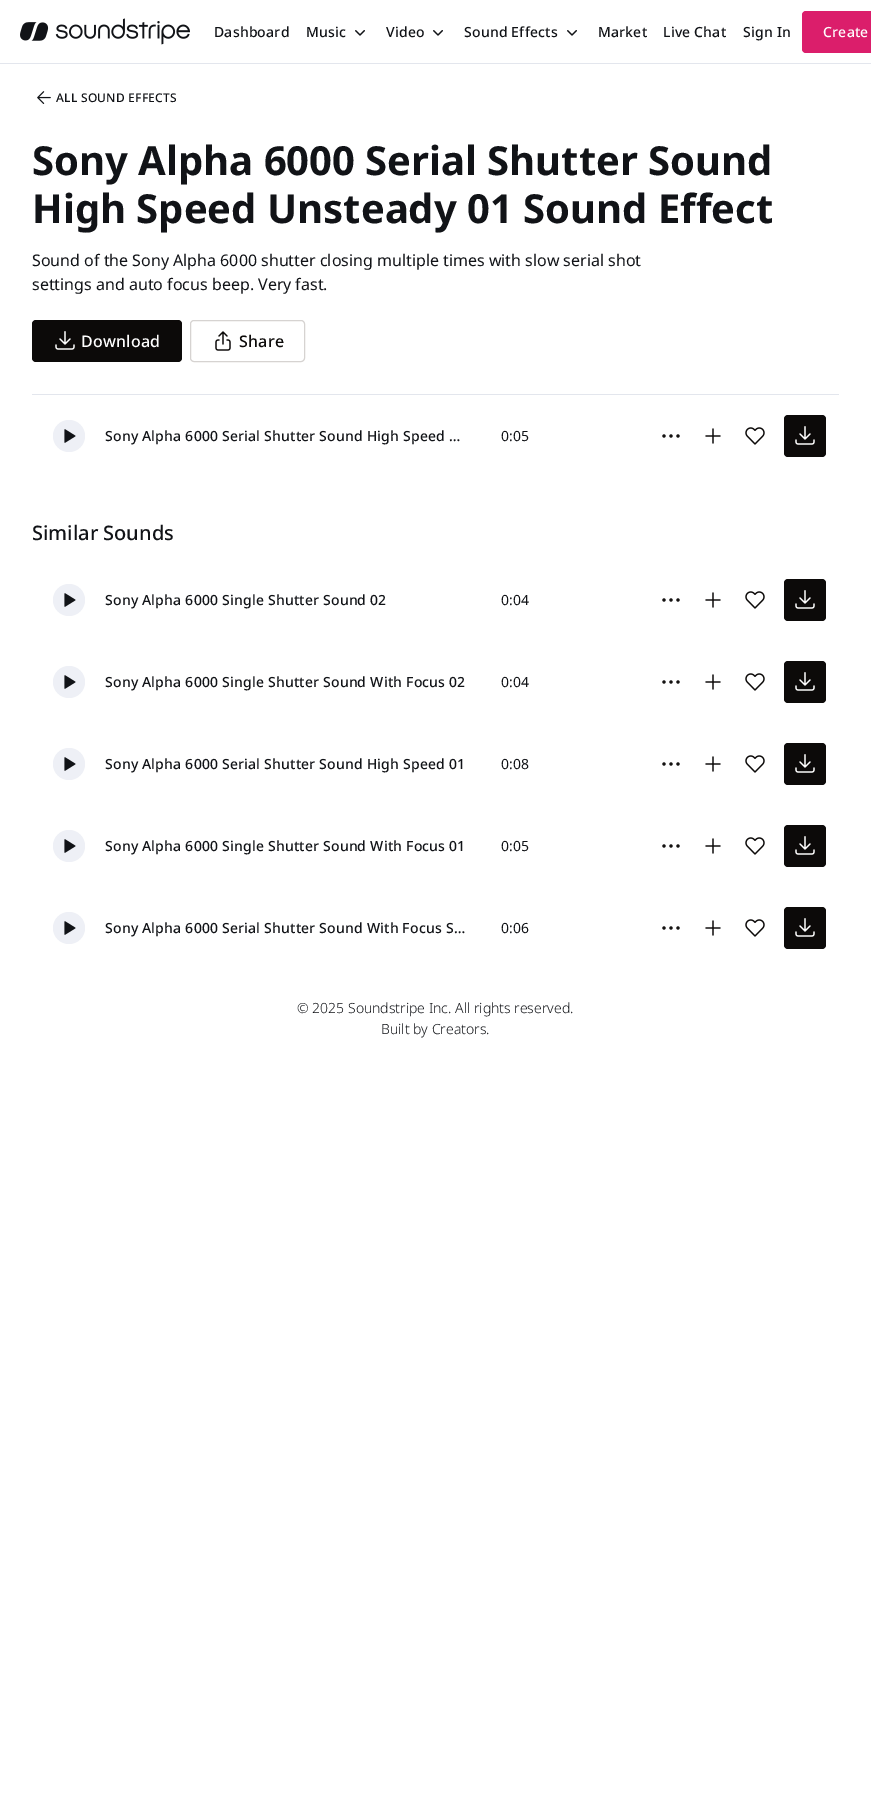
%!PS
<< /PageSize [871 1816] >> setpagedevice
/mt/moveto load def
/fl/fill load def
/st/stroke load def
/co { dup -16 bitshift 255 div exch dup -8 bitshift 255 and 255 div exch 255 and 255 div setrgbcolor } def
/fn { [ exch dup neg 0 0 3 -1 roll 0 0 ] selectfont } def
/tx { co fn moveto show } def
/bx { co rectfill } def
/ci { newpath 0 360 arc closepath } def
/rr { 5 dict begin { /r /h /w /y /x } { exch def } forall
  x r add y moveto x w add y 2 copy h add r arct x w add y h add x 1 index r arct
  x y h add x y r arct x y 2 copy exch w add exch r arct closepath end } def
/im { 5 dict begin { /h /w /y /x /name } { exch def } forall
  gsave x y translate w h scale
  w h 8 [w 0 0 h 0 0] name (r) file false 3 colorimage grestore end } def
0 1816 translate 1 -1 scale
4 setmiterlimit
0 0 871 1816 16#FFFFFF bx
0 63 871 1 16#E3E6ED bx
(media/1.raw) 20 18 170 27 im
(media/2.raw) 355 30 10 6 im
(media/2.raw) 433 30 10 6 im
(media/2.raw) 567 30 10 6 im
16#DB1E6B co
802 11 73 42 4 rr fl
32 394 807 1 16#E3E6ED bx
(media/3.raw) 37 91 14 13 im
16#0C0A09 co
32 320 150 42 4 rr fl
(media/4.raw) 55 331 20 19 im
16#D6D3D1 co
190.5 320.5 114 41 3.5 rr st
(media/5.raw) 215 331 16 20 im
16#EEF0F6 co
69 436 16 ci fl
(media/6.raw) 64 429 12 14 im
(media/7.raw) 662 434 18 4 im
(media/8.raw) 705 428 16 16 im
(media/9.raw) 745 427 20 18 im
16#0C0A09 co
784 415 42 42 4 rr fl
(media/4.raw) 795 426 20 19 im
16#EEF0F6 co
69 600 16 ci fl
(media/6.raw) 64 593 12 14 im
(media/7.raw) 662 598 18 4 im
(media/8.raw) 705 592 16 16 im
(media/9.raw) 745 591 20 18 im
16#0C0A09 co
784 579 42 42 4 rr fl
(media/4.raw) 795 590 20 19 im
16#EEF0F6 co
69 682 16 ci fl
(media/6.raw) 64 675 12 14 im
(media/7.raw) 662 680 18 4 im
(media/8.raw) 705 674 16 16 im
(media/9.raw) 745 673 20 18 im
16#0C0A09 co
784 661 42 42 4 rr fl
(media/4.raw) 795 672 20 19 im
16#EEF0F6 co
69 764 16 ci fl
(media/6.raw) 64 757 12 14 im
(media/7.raw) 662 762 18 4 im
(media/8.raw) 705 756 16 16 im
(media/9.raw) 745 755 20 18 im
16#0C0A09 co
784 743 42 42 4 rr fl
(media/4.raw) 795 754 20 19 im
16#EEF0F6 co
69 846 16 ci fl
(media/6.raw) 64 839 12 14 im
(media/7.raw) 662 844 18 4 im
(media/8.raw) 705 838 16 16 im
(media/9.raw) 745 837 20 18 im
16#0C0A09 co
784 825 42 42 4 rr fl
(media/4.raw) 795 836 20 19 im
16#EEF0F6 co
69 928 16 ci fl
(media/6.raw) 64 921 12 14 im
(media/7.raw) 662 926 18 4 im
(media/8.raw) 705 920 16 16 im
(media/9.raw) 745 919 20 18 im
16#0C0A09 co
784 907 42 42 4 rr fl
(media/4.raw) 795 918 20 19 im
/NotoSans-Medium 14 fn
16#111317 co
214 37 mt .2 0 (Dashboard) ashow
306 37 mt .2 0 (Music) ashow
386 37 mt .2 0 (Video) ashow
464 37 mt .2 0 (Sound Effects) ashow
598 37 mt .2 0 (Market) ashow
663 37 mt .2 0 (Live Chat) ashow
743 37 mt .2 0 (Sign In) ashow
16#FFFFFF co
823 37 mt .25 0 (Create) ashow
/NotoSans-Medium 12 fn
16#111317 co
56 102 mt .25 0 (ALL SOUND EFFECTS) ashow
(Sony Alpha 6000 Serial Shutter Sound) 32 175 /NotoSans-Bold 40 16#111317 tx
(High Speed Unsteady 01 Sound Effect) 32 223 /NotoSans-Bold 40 16#111317 tx
(Sound of the Sony Alpha 6000 shutter closing multiple times with slow serial shot) 32 266 /NotoSans-Regular 16 16#111317 tx
(settings and auto focus beep. Very fast.) 32 290 /NotoSans-Regular 16 16#111317 tx
/NotoSans-Medium 16 fn
16#FFFFFF co
81 347 mt .25 0 (Download) ashow
16#0C0A09 co
239 347 mt .25 0 (Share) ashow
/NotoSans-Medium 14 fn
16#111317 co
105 441 mt .2 0 (Sony Alpha 6000 Serial Shutter Sound High Speed …) ashow
(0:05) 501 441 /NotoSans-Regular 14 16#111317 tx
(Similar Sounds) 32 540 /NotoSans-Medium 20 16#111317 tx
/NotoSans-Medium 14 fn
105 605 mt .2 0 (Sony Alpha 6000 Single Shutter Sound 02) ashow
(0:04) 501 605 /NotoSans-Regular 14 16#111317 tx
/NotoSans-Medium 14 fn
105 687 mt .2 0 (Sony Alpha 6000 Single Shutter Sound With Focus 02) ashow
(0:04) 501 687 /NotoSans-Regular 14 16#111317 tx
/NotoSans-Medium 14 fn
105 769 mt .2 0 (Sony Alpha 6000 Serial Shutter Sound High Speed 01) ashow
(0:08) 501 769 /NotoSans-Regular 14 16#111317 tx
/NotoSans-Medium 14 fn
105 851 mt .2 0 (Sony Alpha 6000 Single Shutter Sound With Focus 01) ashow
(0:05) 501 851 /NotoSans-Regular 14 16#111317 tx
/NotoSans-Medium 14 fn
105 933 mt .2 0 (Sony Alpha 6000 Serial Shutter Sound With Focus S…) ashow
(0:06) 501 933 /NotoSans-Regular 14 16#111317 tx
(© 2025 Soundstripe Inc. All rights reserved.) 297 1013 /NotoSans-Light 14 16#111317 tx
(Built by Creators.) 381 1034 /NotoSans-Light 14 16#111317 tx
showpage
